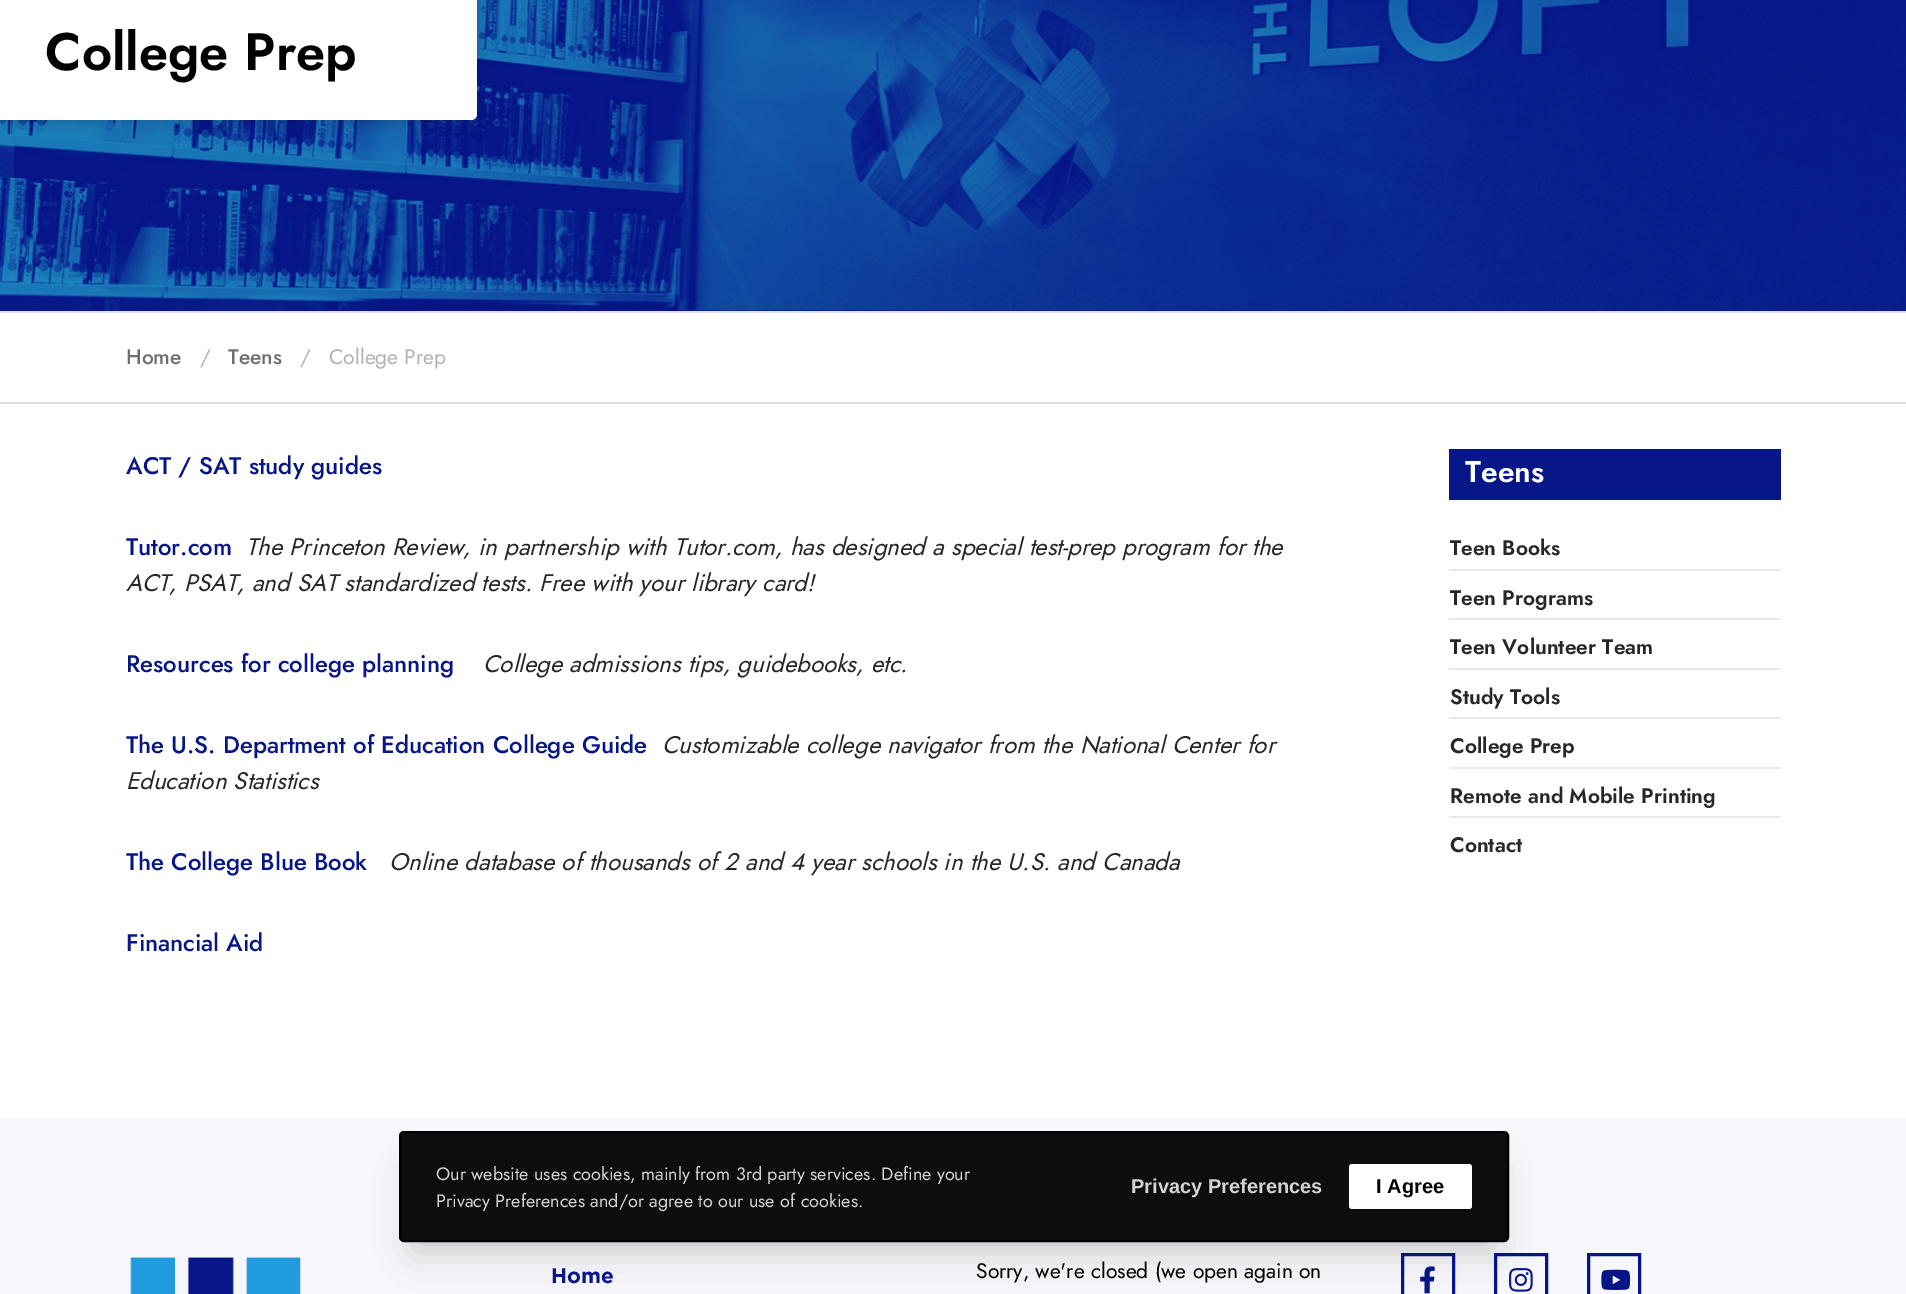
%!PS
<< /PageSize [1906 1294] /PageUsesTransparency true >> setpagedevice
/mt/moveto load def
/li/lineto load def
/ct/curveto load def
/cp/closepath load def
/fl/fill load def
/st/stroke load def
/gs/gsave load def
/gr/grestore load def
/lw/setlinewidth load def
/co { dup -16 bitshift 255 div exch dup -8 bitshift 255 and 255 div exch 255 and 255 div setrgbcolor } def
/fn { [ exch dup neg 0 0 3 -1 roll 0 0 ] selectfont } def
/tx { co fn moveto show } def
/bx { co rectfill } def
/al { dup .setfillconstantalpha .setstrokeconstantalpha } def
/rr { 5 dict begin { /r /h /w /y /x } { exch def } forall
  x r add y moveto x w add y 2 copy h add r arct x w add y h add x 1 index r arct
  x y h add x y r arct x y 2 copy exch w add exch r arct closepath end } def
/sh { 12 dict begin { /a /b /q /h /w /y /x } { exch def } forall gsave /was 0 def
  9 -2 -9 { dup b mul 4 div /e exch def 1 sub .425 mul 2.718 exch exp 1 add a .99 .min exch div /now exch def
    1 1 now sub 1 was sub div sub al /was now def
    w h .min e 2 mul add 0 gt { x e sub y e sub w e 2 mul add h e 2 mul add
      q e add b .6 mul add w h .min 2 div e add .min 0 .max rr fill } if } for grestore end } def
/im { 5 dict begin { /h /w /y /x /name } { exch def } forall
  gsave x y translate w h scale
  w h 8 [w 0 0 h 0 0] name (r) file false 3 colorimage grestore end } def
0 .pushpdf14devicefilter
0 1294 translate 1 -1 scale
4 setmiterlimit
0 0 1906 1294 16#FFFFFF bx
0 310 1906 1 16#071689 bx
(media/1.raw) 0 0 1906 311 im
16#000000 co
-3 -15 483 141 9 4.5 .1 sh
16#FFFFFF co
0 -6 mt 471 -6 li 474.5 -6 477 -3.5 477 0 ct 477 114 li 477 117.5 474.5 120 471 120 ct 0 120 li cp fl
0 311 1906 2 16#E0E0E0 bx
0 402 1906 2 16#E0E0E0 bx
1449 449 332 51 16#071689 bx
1449 569 332 2 16#E9E9E9 bx
1449 618 332 2 16#E9E9E9 bx
1449 668 332 2 16#E9E9E9 bx
1449 717 332 2 16#E9E9E9 bx
1449 767 332 2 16#E9E9E9 bx
1449 816 332 2 16#E9E9E9 bx
0 1118 1906 176 16#F7F7FB bx
16#061588 co
3 lw
1402.5 1254.5 51 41 rectstroke
(media/3.raw) 1420 1266 15 28 im
1495.5 1254.5 51 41 rectstroke
(media/4.raw) 1509 1268 24 24 im
16#000000 co
414 1170 1080 81 0 18 .2 sh
16#0D0D0D co
400 1132 1108 109 4 rr gs fl gr
16#000000 co
2 lw
st
16#FFFFFF co
1349 1164 123 45 3 rr fl
(media/2.raw) 130 1257 171 37 im
16#061588 co
3 lw
1588.5 1254.5 51 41 rectstroke
(media/5.raw) 1601 1269 30 21 im
(College Prep) 45 70 /Jost-SemiBold 52.5 16#000000 tx
(Home) 126 364 /Jost-Medium 21 16#6E6E6E tx
(/) 200 364 /Jost-Regular 21 16#B2B2B2 tx
(Teens) 228 364 /Jost-Medium 21 16#6E6E6E tx
(/) 300 364 /Jost-Regular 21 16#B2B2B2 tx
(College Prep) 329 364 /Jost-Regular 21 16#B2B2B2 tx
(ACT / SAT study guides) 126 474 /Jost-Medium 24 16#061588 tx
(Tutor.com) 126 555 /Jost-Medium 24 16#061588 tx
(The Princeton Review, in partnership with Tutor.com, has designed a special test-prep program for the) 246 555 /Jost-Italic 24 16#272727 tx
(ACT, PSAT, and SAT standardized tests. Free with your library card!) 126 591 /Jost-Italic 24 16#272727 tx
(Resources for college planning) 126 672 /Jost-Medium 24 16#061588 tx
(College admissions tips, guidebooks, etc.) 483 672 /Jost-Italic 24 16#272727 tx
(The U.S. Department of Education College Guide) 126 753 /Jost-Medium 24 16#061588 tx
(Customizable college navigator from the National Center for) 662 753 /Jost-Italic 24 16#272727 tx
(Education Statistics) 126 789 /Jost-Italic 24 16#272727 tx
(The College Blue Book) 126 870 /Jost-Medium 24 16#061588 tx
(Online database of thousands of 2 and 4 year schools in the U.S. and Canada) 389 870 /Jost-Italic 24 16#272727 tx
(Financial Aid) 126 951 /Jost-Medium 24 16#061588 tx
(Teens) 1465 482 /Jost-SemiBold 30 16#FFFFFF tx
(Teen Books) 1450 555 /Jost-SemiBold 21 16#272727 tx
(Teen Programs) 1450 605 /Jost-SemiBold 21 16#272727 tx
(Teen Volunteer Team) 1450 654 /Jost-SemiBold 21 16#272727 tx
(Study Tools) 1450 704 /Jost-SemiBold 21 16#272727 tx
(College Prep) 1450 753 /Jost-SemiBold 21 16#272727 tx
(Remote and Mobile Printing) 1450 803 /Jost-SemiBold 21 16#272727 tx
(Contact) 1450 852 /Jost-SemiBold 21 16#272727 tx
(Our website uses cookies, mainly from 3rd party services. Define your) 436 1180 /Jost-Regular 18 16#D3D3D3 tx
(Privacy Preferences and/or agree to our use of cookies.) 436 1207 /Jost-Regular 18 16#D3D3D3 tx
(Privacy Preferences) 1131 1193 /LiberationSans-Bold 20 16#D3D3D3 tx
(I Agree) 1376 1193 /LiberationSans-Bold 20 16#000000 tx
(Home) 551 1283 /Gotham-Bold 21 16#061588 tx
(Sorry, we're closed \(we open again on) 976 1278 /Jost-Regular 21 16#000000 tx
.poppdf14devicefilter showpage
